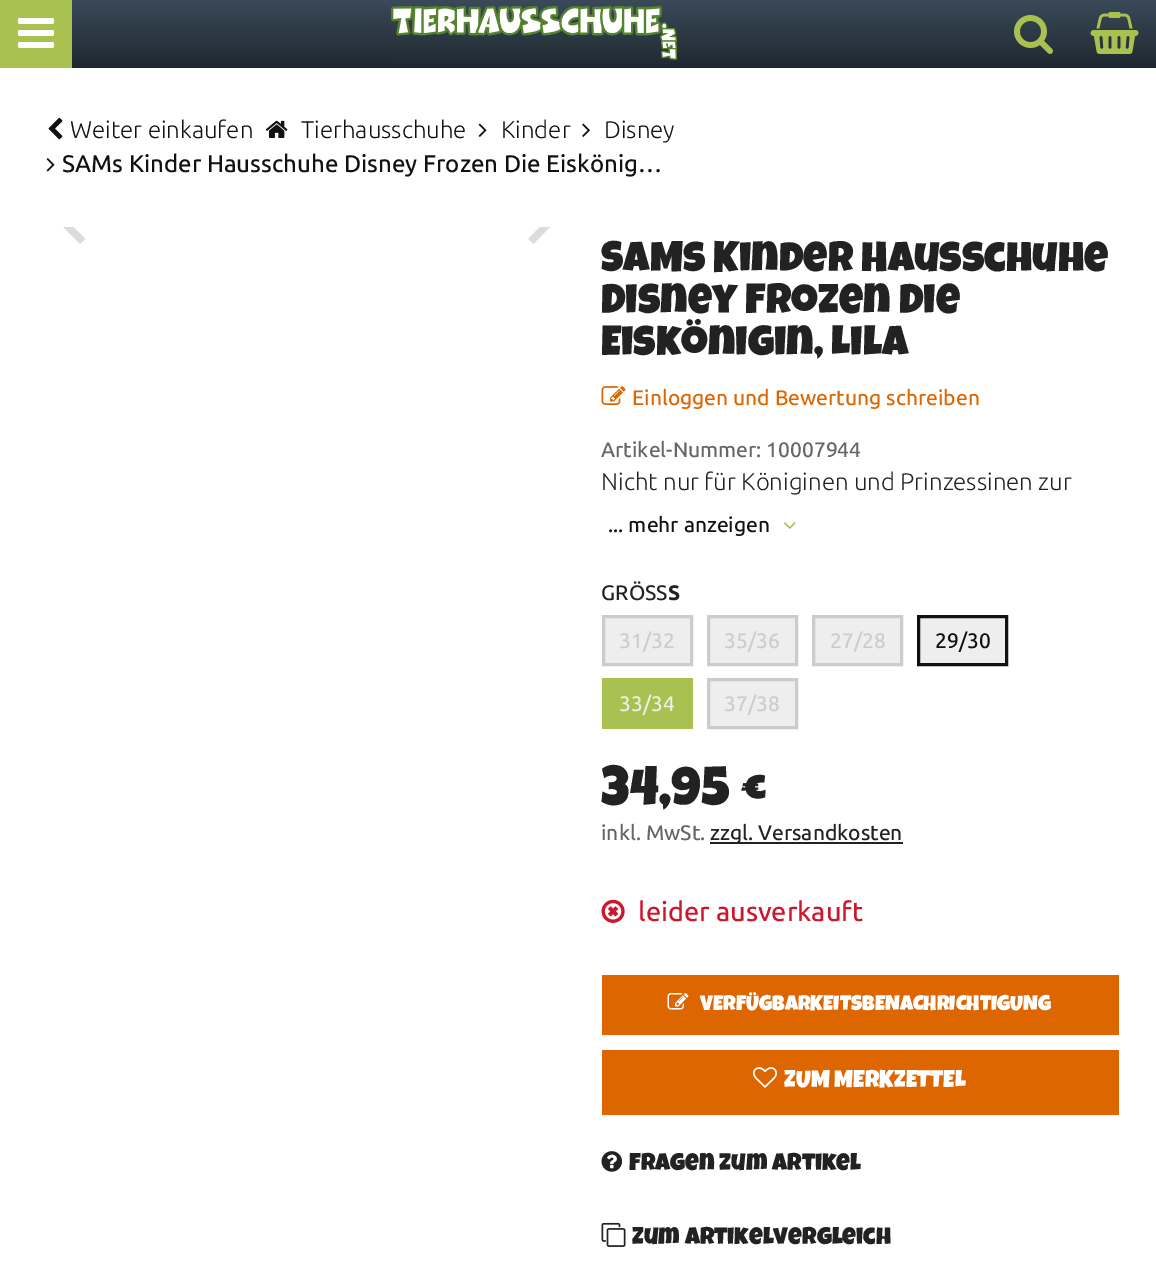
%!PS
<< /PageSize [1156 1264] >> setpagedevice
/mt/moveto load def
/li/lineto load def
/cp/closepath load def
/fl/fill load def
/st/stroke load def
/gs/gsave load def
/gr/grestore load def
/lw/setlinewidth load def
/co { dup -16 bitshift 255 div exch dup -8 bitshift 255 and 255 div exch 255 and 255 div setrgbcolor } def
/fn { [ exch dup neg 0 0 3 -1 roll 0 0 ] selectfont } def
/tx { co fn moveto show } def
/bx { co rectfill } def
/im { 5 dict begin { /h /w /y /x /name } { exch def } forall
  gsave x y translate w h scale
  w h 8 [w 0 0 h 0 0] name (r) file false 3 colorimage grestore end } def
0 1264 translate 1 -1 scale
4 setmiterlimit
0 0 1156 1264 16#FFFFFF bx
gs 72 0 mt 1156 0 li 1156 68 li 72 68 li cp clip newpath
<< /ShadingType 2 /ColorSpace /DeviceRGB /Coords [578 0 578 68] /Extend [true true] /Function << /FunctionType 2 /Domain [0 1] /C0 [.227 .29 .349] /C1 [.122 .157 .184] /N 1 >> >> shfill gr
0 0 72 68 16#A9C151 bx
(media/1.raw) 18 18 36 30 im
(media/2.raw) 390 6 288 54 im
(media/3.raw) 1014 15 39 39 im
(media/4.raw) 1090 12 49 42 im
(media/5.raw) 48 117 15 23 im
(media/6.raw) 265 120 23 18 im
(media/7.raw) 478 123 9 14 im
(media/8.raw) 582 123 8 14 im
(media/9.raw) 46 158 9 14 im
(media/10.raw) 63 227 22 17 im
(media/11.raw) 528 227 22 17 im
(media/12.raw) 601 386 25 19 im
(media/13.raw) 784 522 12 7 im
16#EEEEEE co
603.5 616.5 mt 691.5 616.5 li 691.5 664.5 li 603.5 664.5 li cp gs fl gr
16#CCCCCC co
3 lw
st
16#EEEEEE co
708.5 616.5 mt 796.5 616.5 li 796.5 664.5 li 708.5 664.5 li cp gs fl gr
16#CCCCCC co
st
16#EEEEEE co
813.5 616.5 mt 901.5 616.5 li 901.5 664.5 li 813.5 664.5 li cp gs fl gr
16#CCCCCC co
st
16#EEEEEE co
918.5 616.5 mt 1006.5 616.5 li 1006.5 664.5 li 918.5 664.5 li cp gs fl gr
16#111111 co
st
602 678 91 51 16#A9C151 bx
16#EEEEEE co
708.5 679.5 mt 796.5 679.5 li 796.5 727.5 li 708.5 727.5 li cp gs fl gr
16#CCCCCC co
st
710 842 193 2 16#222222 bx
(media/14.raw) 601 899 24 24 im
602 975 517 60 16#DD6600 bx
(media/15.raw) 667 993 22 17 im
602 1050 517 65 16#DD6600 bx
(media/16.raw) 753 1067 24 21 im
(media/17.raw) 601 1151 22 21 im
(media/18.raw) 601 1222 25 25 im
(Weiter einkaufen) 70 138 /Ubuntu-Light 24 16#111111 tx
(Tierhausschuhe) 301 138 /Ubuntu-Light 24 16#111111 tx
(Kinder) 501 138 /Ubuntu-Light 24 16#111111 tx
(Disney) 604 138 /Ubuntu-Light 24 16#111111 tx
(SAMs Kinder Hausschuhe Disney Frozen Die Eiskönig…) 62 172 /Ubuntu-Medium 24 16#111111 tx
(SAMs Kinder Hausschuhe) 601 271 /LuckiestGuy-Regular 42 16#222222 tx
(Disney Frozen Die) 601 313 /LuckiestGuy-Regular 42 16#222222 tx
(Eiskönigin, Lila) 601 355 /LuckiestGuy-Regular 42 16#222222 tx
(Einloggen und Bewertung schreiben) 632 405 /Ubuntu-Medium 21 16#DD6600 tx
(Artikel-Nummer: 10007944) 601 457 /Ubuntu-Medium 21 16#666666 tx
(Nicht nur für Königinen und Prinzessinen zur) 601 490 /Ubuntu-Light 24 16#222222 tx
(... mehr anzeigen) 608 532 /Ubuntu-Medium 21 16#111111 tx
(GRÖSS) 601 600 /Ubuntu-Medium 21 16#222222 tx
(S) 668 600 /Ubuntu-ExtraBold 21 16#222222 tx
(31/32) 619 648 /Ubuntu-Medium 21 16#CCCCCC tx
(35/36) 724 648 /Ubuntu-Medium 21 16#CCCCCC tx
(27/28) 830 648 /Ubuntu-Medium 21 16#CCCCCC tx
(29/30) 935 648 /Ubuntu-Medium 21 16#111111 tx
(33/34) 619 711 /Ubuntu-Medium 21 16#EEEEEE tx
(37/38) 724 711 /Ubuntu-Medium 21 16#CCCCCC tx
(34,95 €) 601 805 /LuckiestGuy-Regular 54 16#222222 tx
(inkl. MwSt.) 601 840 /Ubuntu-Medium 21 16#666666 tx
(zzgl. Versandkosten) 710 840 /Ubuntu-Medium 21 16#222222 tx
(leider ausverkauft) 638 921 /Ubuntu-Medium 27 16#CD172D tx
(VERFÜGBARKEITSBENACHRICHTIGUNG) 700 1010 /LuckiestGuy-Regular 21 16#FFFFFF tx
(ZUM MERKZETTEL) 784 1087 /LuckiestGuy-Regular 24 16#FFFFFF tx
(Fragen zum Artikel) 629 1170 /LuckiestGuy-Regular 24 16#222222 tx
(Zum Artikelvergleich) 632 1244 /LuckiestGuy-Regular 24 16#222222 tx
showpage
